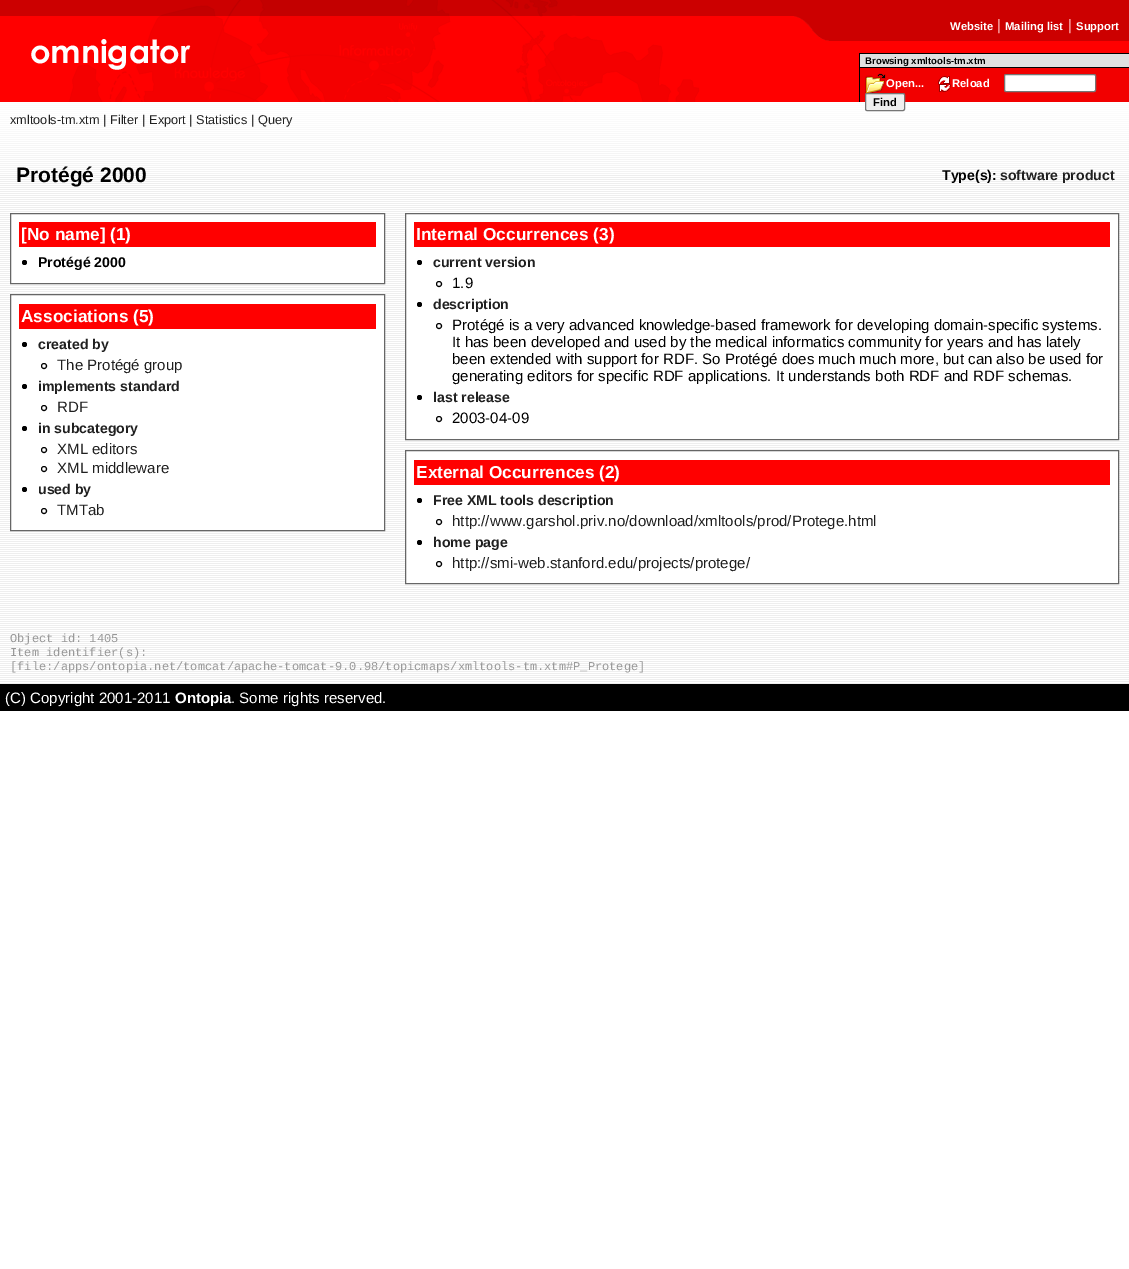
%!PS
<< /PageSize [1129 1269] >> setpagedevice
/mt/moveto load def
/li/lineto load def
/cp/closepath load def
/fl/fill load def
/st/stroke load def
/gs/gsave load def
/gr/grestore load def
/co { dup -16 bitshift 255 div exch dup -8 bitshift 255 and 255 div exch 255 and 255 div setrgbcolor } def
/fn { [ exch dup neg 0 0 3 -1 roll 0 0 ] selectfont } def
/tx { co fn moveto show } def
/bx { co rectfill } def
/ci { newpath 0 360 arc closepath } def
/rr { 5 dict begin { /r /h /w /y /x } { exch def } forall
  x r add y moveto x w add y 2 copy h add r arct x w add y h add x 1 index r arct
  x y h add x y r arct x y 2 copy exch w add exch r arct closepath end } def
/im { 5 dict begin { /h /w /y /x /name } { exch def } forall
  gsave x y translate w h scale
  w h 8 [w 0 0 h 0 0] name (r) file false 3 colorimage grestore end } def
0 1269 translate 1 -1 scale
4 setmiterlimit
0 0 1129 1269 16#FFFFFF bx
(media/1.raw) 0 0 1129 102 im
(media/2.raw) 794 16 35 25 im
(media/3.raw) 31 39 160 31 im
829 16 300 25 16#CC0000 bx
859 53 270 1 16#000000 bx
859 53 1 49 16#000000 bx
860 54 269 13 16#E0E0E0 bx
859 67 270 1 16#000000 bx
860 68 269 34 16#F20000 bx
(media/4.raw) 865 73 21 20 im
(media/5.raw) 938 76 13 16 im
16#FFFFFF co
1004.5 74.5 91 17 1.5 rr gs fl gr
16#767676 co
st
(media/6.raw) 0 102 1129 582 im
(media/7.raw) 0 103 1129 71 im
16#EFEFEF co
865.5 93.5 39 17 1.5 rr gs fl gr
16#767676 co
st
11 215 373 67 16#FFFFFF bx
16#666666 co
10.5 213.5 374 70 rectstroke
19 222 357 25 16#FF0000 bx
16#000000 co
24.5 262.5 2.5 ci fl
16#FFFFFF co
10.5 294.5 mt 384.5 294.5 li 384.5 530.5 li 10.5 530.5 li cp gs fl gr
16#666666 co
st
19 304 357 25 16#FF0000 bx
16#000000 co
24.5 344.5 2.5 ci fl
44 366 2.5 ci st
24.5 386.5 2.5 ci fl
44 408 2.5 ci st
24.5 428.5 2.5 ci fl
44 450 2.5 ci st
44 469 2.5 ci st
24.5 489.5 2.5 ci fl
44 511 2.5 ci st
406 215 712 223 16#FFFFFF bx
16#666666 co
405.5 213.5 713 226 rectstroke
414 222 696 25 16#FF0000 bx
16#000000 co
419.5 262.5 2.5 ci fl
439 284 2.5 ci st
419.5 304.5 2.5 ci fl
439 326 2.5 ci st
419.5 397.5 2.5 ci fl
439 419 2.5 ci st
406 451 712 131 16#FFFFFF bx
16#666666 co
405.5 450.5 713 133 rectstroke
414 460 696 25 16#FF0000 bx
16#000000 co
419.5 500.5 2.5 ci fl
439 522 2.5 ci st
419.5 542.5 2.5 ci fl
439 564 2.5 ci st
0 684 1129 27 16#000000 bx
(Website) 950 30 /LiberationSans-Bold 11.25 16#FFFFFF tx
(|) 997 30 /LiberationSans-Regular 15.05 16#FFBBBB tx
(Mailing list) 1005 30 /LiberationSans-Bold 11.25 16#FFFFFF tx
(|) 1068 30 /LiberationSans-Regular 15.05 16#FFBBBB tx
(Support) 1076 30 /LiberationSans-Bold 11.25 16#FFFFFF tx
(Browsing xmltools-tm.xtm) 865 64 /LiberationSans-Bold 9.6 16#000000 tx
(Open...) 886 87 /LiberationSans-Bold 11.25 16#FFFFFF tx
(Reload) 952 87 /LiberationSans-Bold 11.25 16#FFFFFF tx
(Find) 873 106 /LiberationSans-Bold 11.25 16#000000 tx
(xmltools-tm.xtm) 10 124 /LiberationSans-Regular 12.75 16#202020 tx
(|) 103 124 /LiberationSans-Regular 12.75 16#000000 tx
(Filter) 110 124 /LiberationSans-Regular 12.75 16#202020 tx
(|) 142 124 /LiberationSans-Regular 12.75 16#000000 tx
(Export) 149 124 /LiberationSans-Regular 12.75 16#202020 tx
(|) 189 124 /LiberationSans-Regular 12.75 16#000000 tx
(Statistics) 196 124 /LiberationSans-Regular 12.75 16#202020 tx
(|) 251 124 /LiberationSans-Regular 12.75 16#000000 tx
(Query) 258 124 /LiberationSans-Regular 12.75 16#202020 tx
(Protégé 2000) 16 182 /LiberationSans-Bold 21 16#000000 tx
(Type\(s\):) 942 180 /LiberationSans-Bold 14.1 16#000000 tx
(software product) 1000 180 /LiberationSans-Bold 14.1 16#202020 tx
([No name] \(1\)) 21 240 /LiberationSans-Bold 17.25 16#FFFFFF tx
(Protégé 2000) 38 267 /LiberationSans-Bold 14.1 16#000000 tx
(Associations \(5\)) 21 322 /LiberationSans-Bold 17.25 16#FFFFFF tx
(created by) 38 349 /LiberationSans-Bold 14.1 16#202020 tx
(The Protégé group) 57 370 /LiberationSans-Regular 15.05 16#202020 tx
(implements standard) 38 391 /LiberationSans-Bold 14.1 16#202020 tx
(RDF) 57 412 /LiberationSans-Regular 15.05 16#202020 tx
(in subcategory) 38 433 /LiberationSans-Bold 14.1 16#202020 tx
(XML editors) 57 454 /LiberationSans-Regular 15.05 16#202020 tx
(XML middleware) 57 473 /LiberationSans-Regular 15.05 16#202020 tx
(used by) 38 494 /LiberationSans-Bold 14.1 16#202020 tx
(TMTab) 57 515 /LiberationSans-Regular 15.05 16#202020 tx
(Internal Occurrences \(3\)) 416 240 /LiberationSans-Bold 17.25 16#FFFFFF tx
(current version) 433 267 /LiberationSans-Bold 14.1 16#202020 tx
(1.9) 452 288 /LiberationSans-Regular 15.05 16#000000 tx
(description) 433 309 /LiberationSans-Bold 14.1 16#202020 tx
(Protégé is a very advanced knowledge-based framework for developing domain-specific systems.) 452 330 /LiberationSans-Regular 15.05 16#000000 tx
(It has been developed and used by the medical informatics community for years and has lately) 452 347 /LiberationSans-Regular 15.05 16#000000 tx
(been extended with support for RDF. So Protégé does much much more, but can also be used for) 452 364 /LiberationSans-Regular 15.05 16#000000 tx
(generating editors for specific RDF applications. It understands both RDF and RDF schemas.) 452 381 /LiberationSans-Regular 15.05 16#000000 tx
(last release) 433 402 /LiberationSans-Bold 14.1 16#202020 tx
(2003-04-09) 452 423 /LiberationSans-Regular 15.05 16#000000 tx
(External Occurrences \(2\)) 416 478 /LiberationSans-Bold 17.25 16#FFFFFF tx
(Free XML tools description) 433 505 /LiberationSans-Bold 14.1 16#202020 tx
(http://www.garshol.priv.no/download/xmltools/prod/Protege.html) 452 526 /LiberationSans-Regular 15.05 16#202020 tx
(home page) 433 547 /LiberationSans-Bold 14.1 16#202020 tx
(http://smi-web.stanford.edu/projects/protege/) 452 568 /LiberationSans-Regular 15.05 16#202020 tx
(Object id: 1405) 10 642 /LiberationMono-Regular 12.03 16#999999 tx
(Item identifier\(s\):) 10 656 /LiberationMono-Regular 12.03 16#999999 tx
([file:/apps/ontopia.net/tomcat/apache-tomcat-9.0.98/topicmaps/xmltools-tm.xtm#P_Protege]) 10 670 /LiberationMono-Regular 12.03 16#999999 tx
(\(C\) Copyright 2001-2011) 5 703 /LiberationSans-Regular 15.05 16#FFFFFF tx
(Ontopia) 175 703 /LiberationSans-Bold 15.05 16#FFFFFF tx
(. Some rights reserved.) 231 703 /LiberationSans-Regular 15.05 16#FFFFFF tx
showpage
